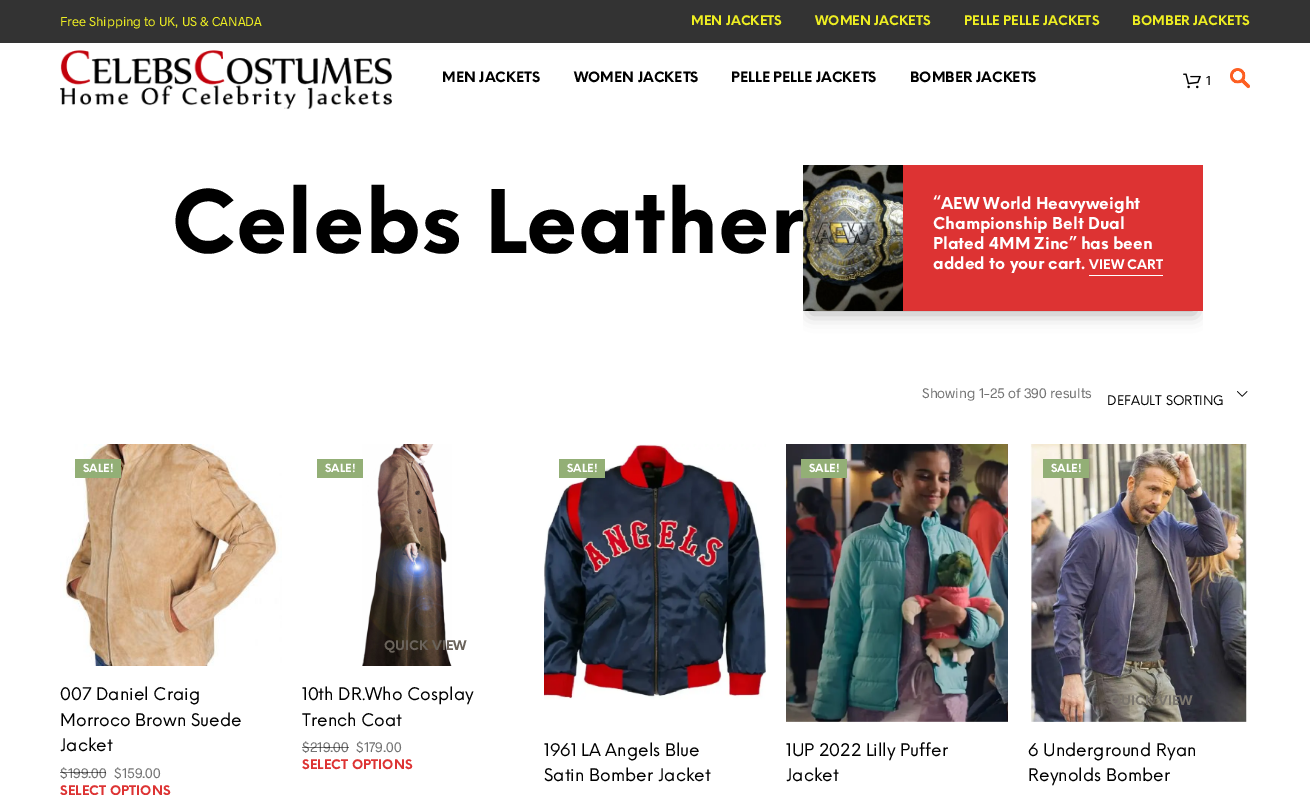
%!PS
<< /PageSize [1310 795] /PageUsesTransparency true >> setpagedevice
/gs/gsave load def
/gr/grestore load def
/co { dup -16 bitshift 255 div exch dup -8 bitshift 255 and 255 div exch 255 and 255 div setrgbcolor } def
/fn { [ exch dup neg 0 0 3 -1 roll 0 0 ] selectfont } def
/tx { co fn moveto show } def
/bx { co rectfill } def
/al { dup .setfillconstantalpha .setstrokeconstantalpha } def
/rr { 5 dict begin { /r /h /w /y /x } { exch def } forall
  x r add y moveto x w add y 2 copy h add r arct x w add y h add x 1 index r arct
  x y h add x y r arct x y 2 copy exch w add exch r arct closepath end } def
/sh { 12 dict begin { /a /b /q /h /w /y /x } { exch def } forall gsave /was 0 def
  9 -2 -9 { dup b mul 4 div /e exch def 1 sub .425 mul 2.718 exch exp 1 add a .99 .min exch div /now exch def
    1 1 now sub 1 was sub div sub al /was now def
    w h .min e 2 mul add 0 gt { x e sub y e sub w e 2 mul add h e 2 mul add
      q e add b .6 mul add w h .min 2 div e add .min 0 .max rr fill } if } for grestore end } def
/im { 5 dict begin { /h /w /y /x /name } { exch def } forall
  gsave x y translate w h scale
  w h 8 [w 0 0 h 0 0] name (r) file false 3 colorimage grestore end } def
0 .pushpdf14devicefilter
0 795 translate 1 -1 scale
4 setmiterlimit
0 0 1310 795 16#FFFFFF bx
0 0 1310 43 16#333333 bx
(media/1.raw) 60 50 332 60 im
(media/2.raw) 1183 73 18 16 im
(media/3.raw) 1230 68 20 21 im
(media/4.raw) 1237 391 11 6 im
(media/5.raw) 60 444 222 222 im
75 459 46 19 16#93AF76 bx
(media/6.raw) 362 444 90 222 im
317 459 46 19 16#93AF76 bx
(media/7.raw) 544 444 222 256 im
559 459 46 19 16#93AF76 bx
(media/8.raw) 786 444 222 278 im
801 459 46 19 16#93AF76 bx
(media/9.raw) 1030 444 218 278 im
1043 459 46 19 16#93AF76 bx
gs
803 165 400 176 rectclip
16#000000 co
810 182 386 132 0 8.5 .3 sh
gr
903 165 300 146 16#DD3333 bx
(media/10.raw) 803 165 100 146 im
1089 275 74 1 16#FFFFFF bx
(Free Shipping to UK, US & CANADA) 60 26 /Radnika-Regular 13 16#EEEE22 tx
(MEN JACKETS) 691 25 /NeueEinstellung-Bold 13 16#EEEE22 tx
(WOMEN JACKETS) 815 25 /NeueEinstellung-Bold 13 16#EEEE22 tx
(PELLE PELLE JACKETS) 964 25 /NeueEinstellung-Bold 13 16#EEEE22 tx
(BOMBER JACKETS) 1132 25 /NeueEinstellung-Bold 13 16#EEEE22 tx
(MEN JACKETS) 442 82 /NeueEinstellung-Bold 14 16#000000 tx
(WOMEN JACKETS) 574 82 /NeueEinstellung-Bold 14 16#000000 tx
(PELLE PELLE JACKETS) 731 82 /NeueEinstellung-Bold 14 16#000000 tx
(BOMBER JACKETS) 910 82 /NeueEinstellung-Bold 14 16#000000 tx
(1) 1206 85 /Radnika-Regular 13 16#000000 tx
(Celebs Leather) 171 253 /NeueEinstellung-Bold 85.25 16#000000 tx
(Showing 1–25 of 390 results) 922 398 /Radnika-Regular 14 16#737373 tx
(DEFAULT SORTING) 1107 405 /NeueEinstellung-Regular 13 16#000000 tx
(SALE!) 83 472 /NeueEinstellung-Bold 11 16#FFFFFF tx
(007 Daniel Craig) 60 700 /NeueEinstellung-Regular 17 16#000000 tx
(Morroco Brown Suede) 60 726 /NeueEinstellung-Regular 17 16#000000 tx
(Jacket) 60 751 /NeueEinstellung-Regular 17 16#000000 tx
($199.00) 60 778 /Radnika-Regular 14 16#737373 tx
0.55 al
60 772 8 1 16#000000 bx
68 772 38 1 16#000000 bx
1 al
($159.00) 114 778 /Radnika-Regular 14 16#737373 tx
(SELECT OPTIONS) 60 795 /NeueEinstellung-Bold 13 16#DD3333 tx
(SALE!) 325 472 /NeueEinstellung-Bold 11 16#FFFFFF tx
(QUICK VIEW) 384 650 /NeueEinstellung-Bold 13 16#6A635B tx
(10th DR.Who Cosplay) 302 700 /NeueEinstellung-Regular 17 16#000000 tx
(Trench Coat) 302 726 /NeueEinstellung-Regular 17 16#000000 tx
($219.00) 302 752 /Radnika-Regular 14 16#737373 tx
0.55 al
302 747 8 1 16#000000 bx
310 747 39 1 16#000000 bx
1 al
($179.00) 356 752 /Radnika-Regular 14 16#737373 tx
(SELECT OPTIONS) 302 769 /NeueEinstellung-Bold 13 16#DD3333 tx
(SALE!) 567 472 /NeueEinstellung-Bold 11 16#FFFFFF tx
(1961 LA Angels Blue) 544 756 /NeueEinstellung-Regular 17 16#000000 tx
(Satin Bomber Jacket) 544 781 /NeueEinstellung-Regular 17 16#000000 tx
(SALE!) 809 472 /NeueEinstellung-Bold 11 16#FFFFFF tx
(1UP 2022 Lilly Puffer) 786 756 /NeueEinstellung-Regular 17 16#000000 tx
(Jacket) 786 781 /NeueEinstellung-Regular 17 16#000000 tx
(SALE!) 1051 472 /NeueEinstellung-Bold 11 16#FFFFFF tx
(QUICK VIEW) 1110 705 /NeueEinstellung-Bold 13 16#7A756D tx
(6 Underground Ryan) 1028 756 /NeueEinstellung-Regular 17 16#000000 tx
(Reynolds Bomber) 1028 781 /NeueEinstellung-Regular 17 16#000000 tx
(“AEW World Heavyweight) 933 209 /NeueEinstellung-Bold 16 16#FFFFFF tx
(Championship Belt Dual) 933 229 /NeueEinstellung-Bold 16 16#FFFFFF tx
(Plated 4MM Zinc” has been) 933 249 /NeueEinstellung-Bold 16 16#FFFFFF tx
(added to your cart.) 933 269 /NeueEinstellung-Bold 16 16#FFFFFF tx
(VIEW CART) 1089 269 /NeueEinstellung-Bold 13 16#FFFFFF tx
.poppdf14devicefilter showpage
